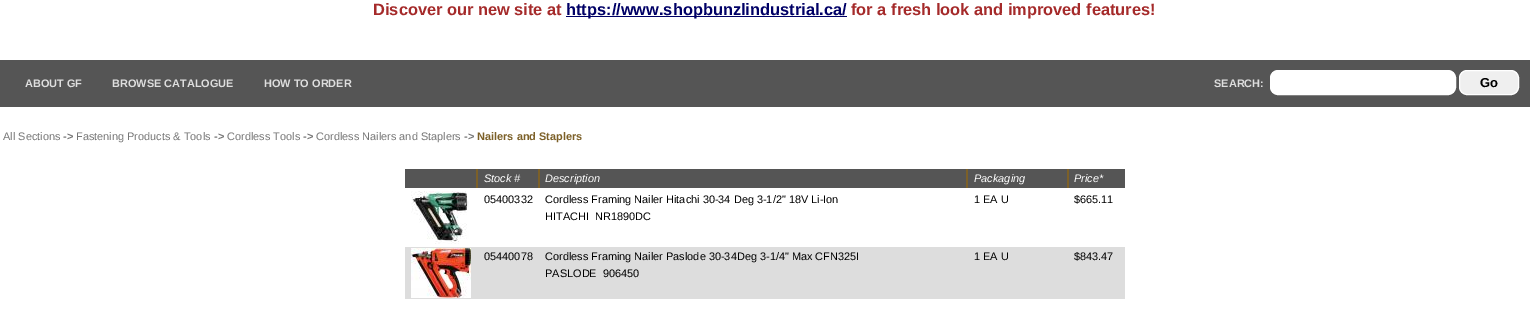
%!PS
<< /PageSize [1530 324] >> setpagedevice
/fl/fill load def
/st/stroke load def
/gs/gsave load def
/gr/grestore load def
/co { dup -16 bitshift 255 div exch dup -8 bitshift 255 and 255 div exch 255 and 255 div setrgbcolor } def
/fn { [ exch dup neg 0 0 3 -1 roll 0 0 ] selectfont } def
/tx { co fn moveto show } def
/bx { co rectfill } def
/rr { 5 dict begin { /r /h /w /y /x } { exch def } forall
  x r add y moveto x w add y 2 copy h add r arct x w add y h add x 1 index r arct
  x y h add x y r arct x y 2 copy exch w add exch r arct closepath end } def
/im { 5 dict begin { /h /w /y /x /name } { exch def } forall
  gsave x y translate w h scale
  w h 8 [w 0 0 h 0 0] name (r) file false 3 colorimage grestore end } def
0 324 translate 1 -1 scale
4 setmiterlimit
0 0 1530 324 16#FFFFFF bx
566 16 281 1 16#000066 bx
0 60 1530 47 16#555555 bx
16#FFFFFF co
1270.5 70.5 185 24 7.5 rr gs fl gr
st
16#EFEFEF co
1459.5 70.5 59 24 7.5 rr gs fl gr
16#FFFFFF co
st
476 169 593 19 16#7C6028 bx
405 169 71 19 16#555555 bx
478 169 60 19 16#555555 bx
540 169 426 19 16#555555 bx
968 169 99 19 16#555555 bx
1069 169 56 19 16#555555 bx
(media/1.raw) 411 191 58 53 im
405 247 720 52 16#DDDDDD bx
(media/2.raw) 411 248 60 50 im
(Discover our new site at) 373 15 /LiberationSans-Bold 16.4 16#A52A2A tx
(https://www.shopbunzlindustrial.ca/) 566 15 /LiberationSans-Bold 16.4 16#000066 tx
(for a fresh look and improved features!) 851 15 /LiberationSans-Bold 16.4 16#A52A2A tx
(ABOUT GF) 25 87 /LiberationSans-Bold 10.95 16#DEDEDE tx
(BROWSE CATALOGUE) 112 87 /LiberationSans-Bold 10.95 16#DEDEDE tx
(HOW TO ORDER) 264 87 /LiberationSans-Bold 10.95 16#DEDEDE tx
(SEARCH:) 1214 87 /LiberationSans-Bold 10.95 16#DEDEDE tx
(Go) 1480 87 /LiberationSans-Bold 13 16#000000 tx
(All Sections) 3 140 /LiberationSans-Regular 10.95 16#777777 tx
(->) 63 140 /LiberationSans-Bold 10.95 16#777777 tx
(Fastening Products & Tools) 76 140 /LiberationSans-Regular 10.95 16#777777 tx
(->) 214 140 /LiberationSans-Bold 10.95 16#777777 tx
(Cordless Tools) 227 140 /LiberationSans-Regular 10.95 16#777777 tx
(->) 303 140 /LiberationSans-Bold 10.95 16#777777 tx
(Cordless Nailers and Staplers) 316 140 /LiberationSans-Regular 10.95 16#777777 tx
(->) 464 140 /LiberationSans-Bold 10.95 16#777777 tx
(Nailers and Staplers) 477 140 /LiberationSans-Bold 10.95 16#7C6028 tx
(Stock #) 484 182 /LiberationSans-Italic 10.95 16#FFFFFF tx
(Description) 545 182 /LiberationSans-Italic 10.95 16#FFFFFF tx
(Packaging) 974 182 /LiberationSans-Italic 10.95 16#FFFFFF tx
(Price*) 1074 182 /LiberationSans-Italic 10.95 16#FFFFFF tx
(05400332) 484 203 /LiberationSans-Regular 10.95 16#000000 tx
(Cordless Framing Nailer Hitachi 30-34 Deg 3-1/2" 18V Li-Ion) 545 203 /LiberationSans-Regular 10.95 16#000000 tx
(HITACHI  NR1890DC) 545 220 /LiberationSans-Regular 10.95 16#000000 tx
(1 EA U) 974 203 /LiberationSans-Regular 10.95 16#000000 tx
($665.11) 1074 203 /LiberationSans-Regular 10.95 16#000000 tx
(05440078) 484 260 /LiberationSans-Regular 10.95 16#000000 tx
(Cordless Framing Nailer Paslode 30-34Deg 3-1/4" Max CFN325I) 545 260 /LiberationSans-Regular 10.95 16#000000 tx
(PASLODE  906450) 545 277 /LiberationSans-Regular 10.95 16#000000 tx
(1 EA U) 974 260 /LiberationSans-Regular 10.95 16#000000 tx
($843.47) 1074 260 /LiberationSans-Regular 10.95 16#000000 tx
showpage
